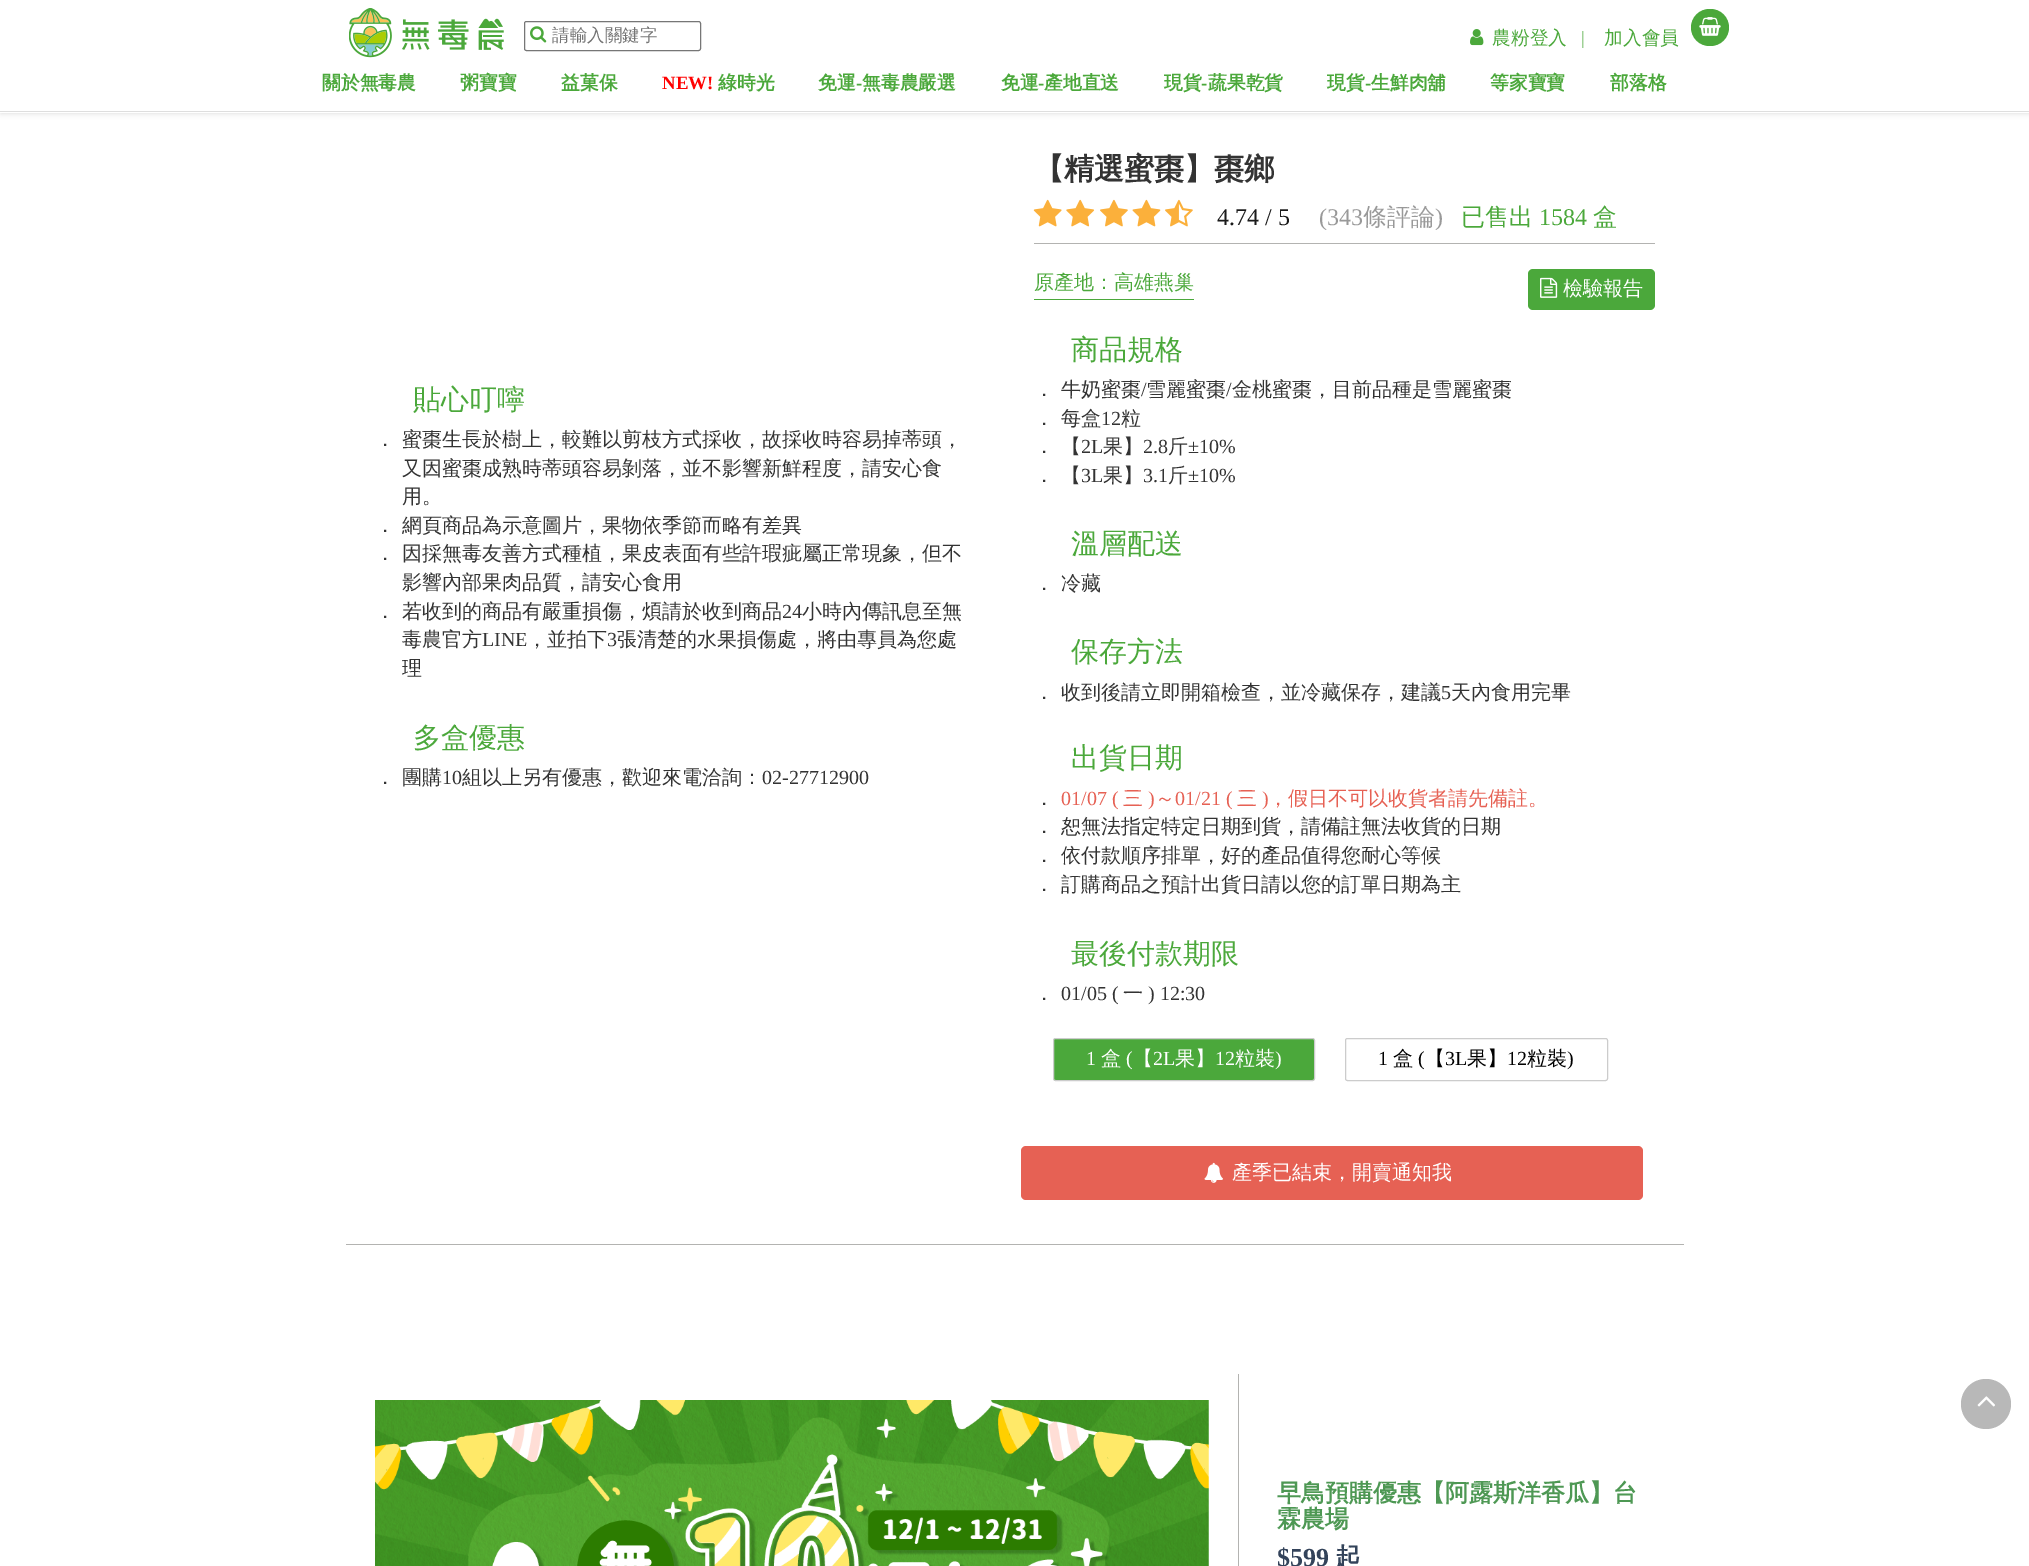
%!PS
<< /PageSize [2029 1566] /PageUsesTransparency true >> setpagedevice
/fl/fill load def
/st/stroke load def
/gs/gsave load def
/gr/grestore load def
/co { dup -16 bitshift 255 div exch dup -8 bitshift 255 and 255 div exch 255 and 255 div setrgbcolor } def
/fn { [ exch dup neg 0 0 3 -1 roll 0 0 ] selectfont } def
/tx { co fn moveto show } def
/bx { co rectfill } def
/al { dup .setfillconstantalpha .setstrokeconstantalpha } def
/ci { newpath 0 360 arc closepath } def
/rr { 5 dict begin { /r /h /w /y /x } { exch def } forall
  x r add y moveto x w add y 2 copy h add r arct x w add y h add x 1 index r arct
  x y h add x y r arct x y 2 copy exch w add exch r arct closepath end } def
/sh { 12 dict begin { /a /b /q /h /w /y /x } { exch def } forall gsave /was 0 def
  9 -2 -9 { dup b mul 4 div /e exch def 1 sub .425 mul 2.718 exch exp 1 add a .99 .min exch div /now exch def
    1 1 now sub 1 was sub div sub al /was now def
    w h .min e 2 mul add 0 gt { x e sub y e sub w e 2 mul add h e 2 mul add
      q e add b .6 mul add w h .min 2 div e add .min 0 .max rr fill } if } for grestore end } def
/im { 5 dict begin { /h /w /y /x /name } { exch def } forall
  gsave x y translate w h scale
  w h 8 [w 0 0 h 0 0] name (r) file false 3 colorimage grestore end } def
0 .pushpdf14devicefilter
0 1566 translate 1 -1 scale
4 setmiterlimit
0 0 2029 1566 16#FFFFFF bx
16#000000 co
1 0 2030 113 0 3 .15 sh
0 0 2029 113 16#FFFFFF bx
0 111 2029 1 16#DEDEDE bx
(media/1.raw) 349 8 155 50 im
16#767676 co
524.5 21.5 176 29 2 rr st
(media/2.raw) 530 26 17 17 im
(media/3.raw) 1470 29 14 17 im
16#4BA83B co
1691 9 38 37 18.5 rr fl
(media/4.raw) 1699 17 22 19 im
1034 243 621 1 16#B3B3B1 bx
(media/5.raw) 1033 199 29 28 im
(media/6.raw) 1066 199 29 28 im
(media/7.raw) 1100 199 28 28 im
(media/8.raw) 1132 199 29 28 im
(media/9.raw) 1165 199 28 28 im
1034 299 160 1 16#4BA83B bx
1528 269 127 41 5 rr fl
(media/10.raw) 1540 277 18 21 im
1053.5 1038.5 261 42 2 rr gs fl gr
16#CCCCCC co
st
1345.5 1038.5 262 42 2 rr st
16#E66154 co
1021 1146 622 54 5 rr fl
(media/11.raw) 1204 1162 19 21 im
346 1244 1338 1 16#B3B3B1 bx
(media/12.raw) 375 1400 834 166 im
1238 1374 1 192 16#B3B3B1 bx
16#B8B8B8 co
1986 1404 25 ci fl
(media/13.raw) 1977 1396 18 11 im
(請輸入關鍵字) 552 41 /WenQuanYiZenHei-Medium 17.5 16#757575 tx
(農粉登入) 1492 44 /WenQuanYiZenHei-Medium 18.75 16#4BA83B tx
(|) 1581 44 /LiberationSerif-Regular 18.75 16#4BA83B tx
(加入會員) 1604 44 /WenQuanYiZenHei-Medium 18.75 16#4BA83B tx
(關於無毒農) 322 89 /WenQuanYiZenHei-Bold 18.75 16#4BA83B tx
(粥寶寶) 460 89 /WenQuanYiZenHei-Bold 18.75 16#4BA83B tx
(益菓保) 561 89 /WenQuanYiZenHei-Bold 18.75 16#4BA83B tx
(NEW!) 662 89 /LiberationSerif-Bold 18.75 16#FF0000 tx
(綠時光) 718 89 /WenQuanYiZenHei-Bold 18.75 16#4BA83B tx
(免運) 818 89 /WenQuanYiZenHei-Bold 18.75 16#4BA83B tx
(-) 856 89 /LiberationSerif-Bold 18.75 16#4BA83B tx
(無毒農嚴選) 862 89 /WenQuanYiZenHei-Bold 18.75 16#4BA83B tx
(免運) 1001 89 /WenQuanYiZenHei-Bold 18.75 16#4BA83B tx
(-) 1038 89 /LiberationSerif-Bold 18.75 16#4BA83B tx
(產地直送) 1044 89 /WenQuanYiZenHei-Bold 18.75 16#4BA83B tx
(現貨) 1164 89 /WenQuanYiZenHei-Bold 18.75 16#4BA83B tx
(-) 1201 89 /LiberationSerif-Bold 18.75 16#4BA83B tx
(蔬果乾貨) 1208 89 /WenQuanYiZenHei-Bold 18.75 16#4BA83B tx
(現貨) 1327 89 /WenQuanYiZenHei-Bold 18.75 16#4BA83B tx
(-) 1365 89 /LiberationSerif-Bold 18.75 16#4BA83B tx
(生鮮肉舖) 1371 89 /WenQuanYiZenHei-Bold 18.75 16#4BA83B tx
(等家寶寶) 1490 89 /WenQuanYiZenHei-Bold 18.75 16#4BA83B tx
(部落格) 1610 89 /WenQuanYiZenHei-Bold 18.75 16#4BA83B tx
(貼心叮嚀) 413 409 /WenQuanYiZenHei-Medium 28 16#4BA83B tx
(．) 375 446 /WenQuanYiZenHei-Medium 20 16#333333 tx
(蜜棗生長於樹上，較難以剪枝方式採收，故採收時容易掉蒂頭，) 402 446 /WenQuanYiZenHei-Medium 20 16#333333 tx
(又因蜜棗成熟時蒂頭容易剝落，並不影響新鮮程度，請安心食) 402 475 /WenQuanYiZenHei-Medium 20 16#333333 tx
(用。) 402 503 /WenQuanYiZenHei-Medium 20 16#333333 tx
(．) 375 532 /WenQuanYiZenHei-Medium 20 16#333333 tx
(網頁商品為示意圖片，果物依季節而略有差異) 402 532 /WenQuanYiZenHei-Medium 20 16#333333 tx
(．) 375 560 /WenQuanYiZenHei-Medium 20 16#333333 tx
(因採無毒友善方式種植，果皮表面有些許瑕疵屬正常現象，但不) 402 560 /WenQuanYiZenHei-Medium 20 16#333333 tx
(影響內部果肉品質，請安心食用) 402 589 /WenQuanYiZenHei-Medium 20 16#333333 tx
(．) 375 618 /WenQuanYiZenHei-Medium 20 16#333333 tx
(若收到的商品有嚴重損傷，煩請於收到商品) 402 618 /WenQuanYiZenHei-Medium 20 16#333333 tx
(24) 782 618 /LiberationSerif-Regular 20 16#333333 tx
(小時內傳訊息至無) 802 618 /WenQuanYiZenHei-Medium 20 16#333333 tx
(毒農官方) 402 646 /WenQuanYiZenHei-Medium 20 16#333333 tx
(LINE) 482 646 /LiberationSerif-Regular 20 16#333333 tx
(，並拍下) 527 646 /WenQuanYiZenHei-Medium 20 16#333333 tx
(3) 607 646 /LiberationSerif-Regular 20 16#333333 tx
(張清楚的水果損傷處，將由專員為您處) 617 646 /WenQuanYiZenHei-Medium 20 16#333333 tx
(理) 402 675 /WenQuanYiZenHei-Medium 20 16#333333 tx
(多盒優惠) 413 747 /WenQuanYiZenHei-Medium 28 16#4BA83B tx
(．) 375 784 /WenQuanYiZenHei-Medium 20 16#333333 tx
(團購) 402 784 /WenQuanYiZenHei-Medium 20 16#333333 tx
(10) 442 784 /LiberationSerif-Regular 20 16#333333 tx
(組以上另有優惠，歡迎來電洽詢：) 462 784 /WenQuanYiZenHei-Medium 20 16#333333 tx
(02-27712900) 762 784 /LiberationSerif-Regular 20 16#333333 tx
(【精選蜜棗】棗鄉) 1034 179 /WenQuanYiZenHei-Bold 30 16#333333 tx
(4.74 / 5) 1217 225 /LiberationSerif-Regular 24 16#1A1A1A tx
(\(343) 1319 225 /LiberationSerif-Regular 24 16#999999 tx
(條評論) 1363 225 /WenQuanYiZenHei-Medium 24 16#999999 tx
(\)) 1435 225 /LiberationSerif-Regular 24 16#999999 tx
(已售出) 1461 225 /WenQuanYiZenHei-Medium 24 16#4BA83B tx
(1584) 1539 225 /LiberationSerif-Regular 24 16#4BA83B tx
(盒) 1593 225 /WenQuanYiZenHei-Medium 24 16#4BA83B tx
(原產地：高雄燕巢) 1034 289 /WenQuanYiZenHei-Medium 20 16#4BA83B tx
(檢驗報告) 1563 295 /WenQuanYiZenHei-Medium 20 16#FFFFFF tx
(商品規格) 1071 359 /WenQuanYiZenHei-Medium 28 16#4BA83B tx
(．) 1034 396 /WenQuanYiZenHei-Medium 20 16#333333 tx
(牛奶蜜棗) 1061 396 /WenQuanYiZenHei-Medium 20 16#333333 tx
(/) 1141 396 /LiberationSerif-Regular 20 16#333333 tx
(雪麗蜜棗) 1146 396 /WenQuanYiZenHei-Medium 20 16#333333 tx
(/) 1226 396 /LiberationSerif-Regular 20 16#333333 tx
(金桃蜜棗，目前品種是雪麗蜜棗) 1232 396 /WenQuanYiZenHei-Medium 20 16#333333 tx
(．) 1034 425 /WenQuanYiZenHei-Medium 20 16#333333 tx
(每盒) 1061 425 /WenQuanYiZenHei-Medium 20 16#333333 tx
(12) 1101 425 /LiberationSerif-Regular 20 16#333333 tx
(粒) 1121 425 /WenQuanYiZenHei-Medium 20 16#333333 tx
(．) 1034 453 /WenQuanYiZenHei-Medium 20 16#333333 tx
(【) 1061 453 /WenQuanYiZenHei-Medium 20 16#333333 tx
(2L) 1081 453 /LiberationSerif-Regular 20 16#333333 tx
(果】) 1103 453 /WenQuanYiZenHei-Medium 20 16#333333 tx
(2.8) 1143 453 /LiberationSerif-Regular 20 16#333333 tx
(斤) 1168 453 /WenQuanYiZenHei-Medium 20 16#333333 tx
(±10%) 1188 453 /LiberationSerif-Regular 20 16#333333 tx
(．) 1034 482 /WenQuanYiZenHei-Medium 20 16#333333 tx
(【) 1061 482 /WenQuanYiZenHei-Medium 20 16#333333 tx
(3L) 1081 482 /LiberationSerif-Regular 20 16#333333 tx
(果】) 1103 482 /WenQuanYiZenHei-Medium 20 16#333333 tx
(3.1) 1143 482 /LiberationSerif-Regular 20 16#333333 tx
(斤) 1168 482 /WenQuanYiZenHei-Medium 20 16#333333 tx
(±10%) 1188 482 /LiberationSerif-Regular 20 16#333333 tx
(溫層配送) 1071 553 /WenQuanYiZenHei-Medium 28 16#4BA83B tx
(．) 1034 590 /WenQuanYiZenHei-Medium 20 16#333333 tx
(冷藏) 1061 590 /WenQuanYiZenHei-Medium 20 16#333333 tx
(保存方法) 1071 661 /WenQuanYiZenHei-Medium 28 16#4BA83B tx
(．) 1034 699 /WenQuanYiZenHei-Medium 20 16#333333 tx
(收到後請立即開箱檢查，並冷藏保存，建議) 1061 699 /WenQuanYiZenHei-Medium 20 16#333333 tx
(5) 1441 699 /LiberationSerif-Regular 20 16#333333 tx
(天內食用完畢) 1451 699 /WenQuanYiZenHei-Medium 20 16#333333 tx
(出貨日期) 1071 767 /WenQuanYiZenHei-Medium 28 16#4BA83B tx
(．) 1034 805 /WenQuanYiZenHei-Medium 20 16#333333 tx
(01/07 \() 1061 805 /LiberationSerif-Regular 20 16#E66154 tx
(三) 1123 805 /WenQuanYiZenHei-Medium 20 16#E66154 tx
(\)) 1148 805 /LiberationSerif-Regular 20 16#E66154 tx
(～) 1155 805 /WenQuanYiZenHei-Medium 20 16#E66154 tx
(01/21 \() 1175 805 /LiberationSerif-Regular 20 16#E66154 tx
(三) 1237 805 /WenQuanYiZenHei-Medium 20 16#E66154 tx
(\)) 1262 805 /LiberationSerif-Regular 20 16#E66154 tx
(，假日不可以收貨者請先備註。) 1268 805 /WenQuanYiZenHei-Medium 20 16#E66154 tx
(．) 1034 833 /WenQuanYiZenHei-Medium 20 16#333333 tx
(恕無法指定特定日期到貨，請備註無法收貨的日期) 1061 833 /WenQuanYiZenHei-Medium 20 16#333333 tx
(．) 1034 862 /WenQuanYiZenHei-Medium 20 16#333333 tx
(依付款順序排單，好的產品值得您耐心等候) 1061 862 /WenQuanYiZenHei-Medium 20 16#333333 tx
(．) 1034 891 /WenQuanYiZenHei-Medium 20 16#333333 tx
(訂購商品之預計出貨日請以您的訂單日期為主) 1061 891 /WenQuanYiZenHei-Medium 20 16#333333 tx
(最後付款期限) 1071 963 /WenQuanYiZenHei-Medium 28 16#4BA83B tx
(．) 1034 1000 /WenQuanYiZenHei-Medium 20 16#333333 tx
(01/05 \() 1061 1000 /LiberationSerif-Regular 20 16#333333 tx
(一) 1123 1000 /WenQuanYiZenHei-Medium 20 16#333333 tx
(\) 12:30) 1148 1000 /LiberationSerif-Regular 20 16#333333 tx
(1) 1086 1065 /LiberationSerif-Regular 20 16#FFFFFF tx
(盒) 1101 1065 /WenQuanYiZenHei-Medium 20 16#FFFFFF tx
(\() 1126 1065 /LiberationSerif-Regular 20 16#FFFFFF tx
(【) 1133 1065 /WenQuanYiZenHei-Medium 20 16#FFFFFF tx
(2L) 1153 1065 /LiberationSerif-Regular 20 16#FFFFFF tx
(果】) 1175 1065 /WenQuanYiZenHei-Medium 20 16#FFFFFF tx
(12) 1215 1065 /LiberationSerif-Regular 20 16#FFFFFF tx
(粒裝) 1235 1065 /WenQuanYiZenHei-Medium 20 16#FFFFFF tx
(\)) 1275 1065 /LiberationSerif-Regular 20 16#FFFFFF tx
(1) 1378 1065 /LiberationSerif-Regular 20 16#000000 tx
(盒) 1393 1065 /WenQuanYiZenHei-Medium 20 16#000000 tx
(\() 1418 1065 /LiberationSerif-Regular 20 16#000000 tx
(【) 1425 1065 /WenQuanYiZenHei-Medium 20 16#000000 tx
(3L) 1445 1065 /LiberationSerif-Regular 20 16#000000 tx
(果】) 1467 1065 /WenQuanYiZenHei-Medium 20 16#000000 tx
(12) 1507 1065 /LiberationSerif-Regular 20 16#000000 tx
(粒裝) 1527 1065 /WenQuanYiZenHei-Medium 20 16#000000 tx
(\)) 1567 1065 /LiberationSerif-Regular 20 16#000000 tx
(產季已結束，開賣通知我) 1232 1179 /WenQuanYiZenHei-Medium 20 16#FFFFFF tx
(早鳥預購優惠【阿露斯洋香瓜】台) 1277 1501 /WenQuanYiZenHei-Bold 24 16#4E9854 tx
(霖農場) 1277 1527 /WenQuanYiZenHei-Bold 24 16#4E9854 tx
($599) 1277 1566 /LiberationSerif-Bold 26 16#33435A tx
(起) 1335 1566 /WenQuanYiZenHei-Bold 26 16#33435A tx
.poppdf14devicefilter showpage
